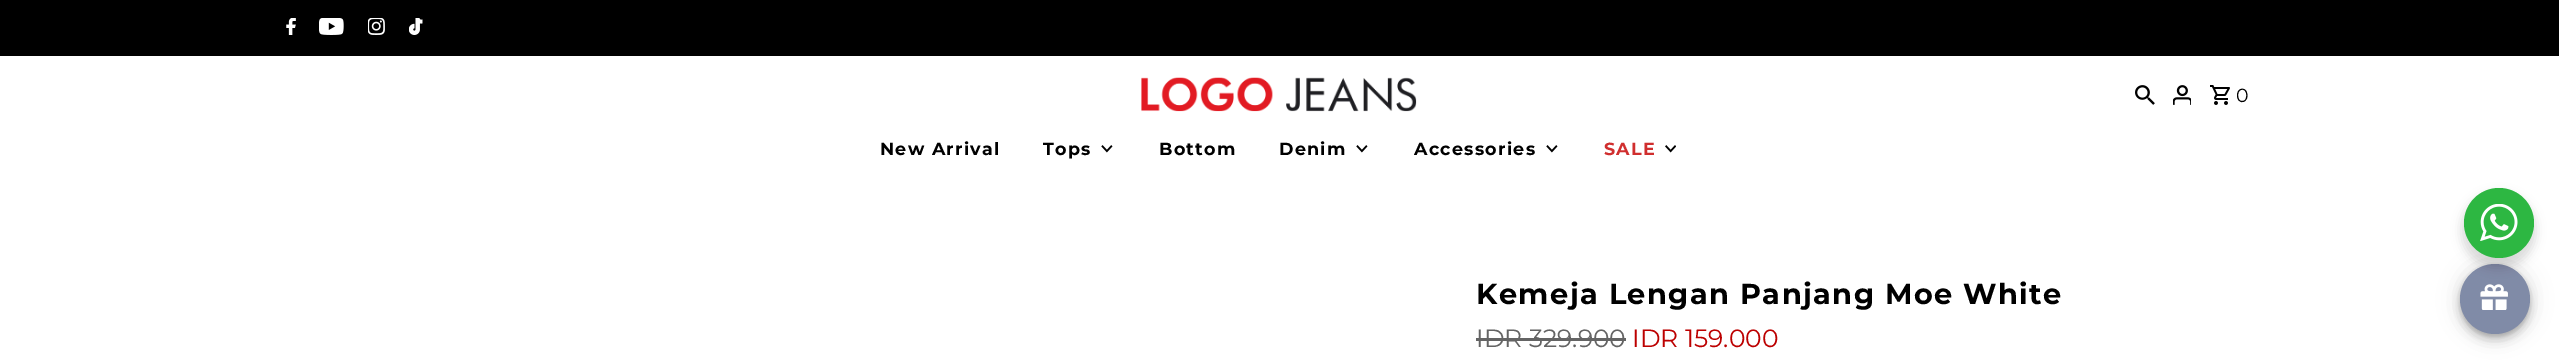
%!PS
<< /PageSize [2559 363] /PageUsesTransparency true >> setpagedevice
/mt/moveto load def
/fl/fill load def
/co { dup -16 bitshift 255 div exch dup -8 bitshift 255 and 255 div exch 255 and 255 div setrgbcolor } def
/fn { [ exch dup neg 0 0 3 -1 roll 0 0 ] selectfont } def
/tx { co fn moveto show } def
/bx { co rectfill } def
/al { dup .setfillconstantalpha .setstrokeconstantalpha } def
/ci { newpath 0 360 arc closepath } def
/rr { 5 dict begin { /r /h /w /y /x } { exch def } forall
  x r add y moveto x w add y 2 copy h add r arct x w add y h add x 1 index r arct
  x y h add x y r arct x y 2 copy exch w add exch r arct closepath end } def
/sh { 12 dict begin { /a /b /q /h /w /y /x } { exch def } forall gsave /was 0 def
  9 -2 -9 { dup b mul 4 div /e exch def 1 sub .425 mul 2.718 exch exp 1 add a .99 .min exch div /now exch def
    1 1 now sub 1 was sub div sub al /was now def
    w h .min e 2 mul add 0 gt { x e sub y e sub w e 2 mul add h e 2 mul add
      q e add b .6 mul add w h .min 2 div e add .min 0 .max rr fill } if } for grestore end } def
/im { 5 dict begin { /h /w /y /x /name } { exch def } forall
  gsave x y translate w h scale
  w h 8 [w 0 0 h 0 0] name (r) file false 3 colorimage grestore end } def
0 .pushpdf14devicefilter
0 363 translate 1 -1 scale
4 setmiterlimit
0 0 2559 363 16#FFFFFF bx
0 0 2559 56 16#000000 bx
(media/1.raw) 286 18 10 17 im
(media/2.raw) 319 18 25 17 im
(media/3.raw) 368 18 17 17 im
(media/4.raw) 409 18 14 17 im
(media/5.raw) 1141 77 276 35 im
(media/6.raw) 2135 85 20 20 im
(media/7.raw) 2173 85 18 20 im
(media/8.raw) 2210 85 20 20 im
(media/9.raw) 1101 145 12 8 im
(media/9.raw) 1356 145 12 8 im
(media/9.raw) 1546 145 12 8 im
(media/10.raw) 1665 145 11 8 im
1476 338 150 3 16#646464 bx
16#000000 co
2460 265 70 70 35 11 .12 sh
2460 271 70 70 35 6 .14 sh
2461 269 68 67 33.5 3 .2 sh
16#808BA7 co
2495 299 35 ci fl
16#000000 co
2461 193 75 75 37.5 5 .14 sh
16#2DB742 co
2499 223 35 ci fl
(media/11.raw) 2480 204 38 37 im
(media/12.raw) 2480 284 28 26 im
/Montserrat-Regular 19 fn
16#000000 co
2236 102 mt 1.25 0 (0) ashow
/Montserrat-Bold 17.5 fn
880 155 mt 1.25 0 (New Arrival) ashow
1043 155 mt 1.25 0 (Tops) ashow
1159 155 mt 1.25 0 (Bottom) ashow
1279 155 mt 1.25 0 (Denim) ashow
1414 155 mt 1.25 0 (Accessories) ashow
16#D02E2E co
1604 155 mt 1.25 0 (SALE) ashow
/Montserrat-Bold 28.75 fn
16#000000 co
1476 304 mt 1.45 0 (Kemeja Lengan Panjang Moe White) ashow
(IDR 329.900) 1476 347 /Montserrat-Regular 25 16#646464 tx
(IDR 159.000) 1632 347 /Montserrat-Regular 25 16#BC0000 tx
.poppdf14devicefilter showpage
